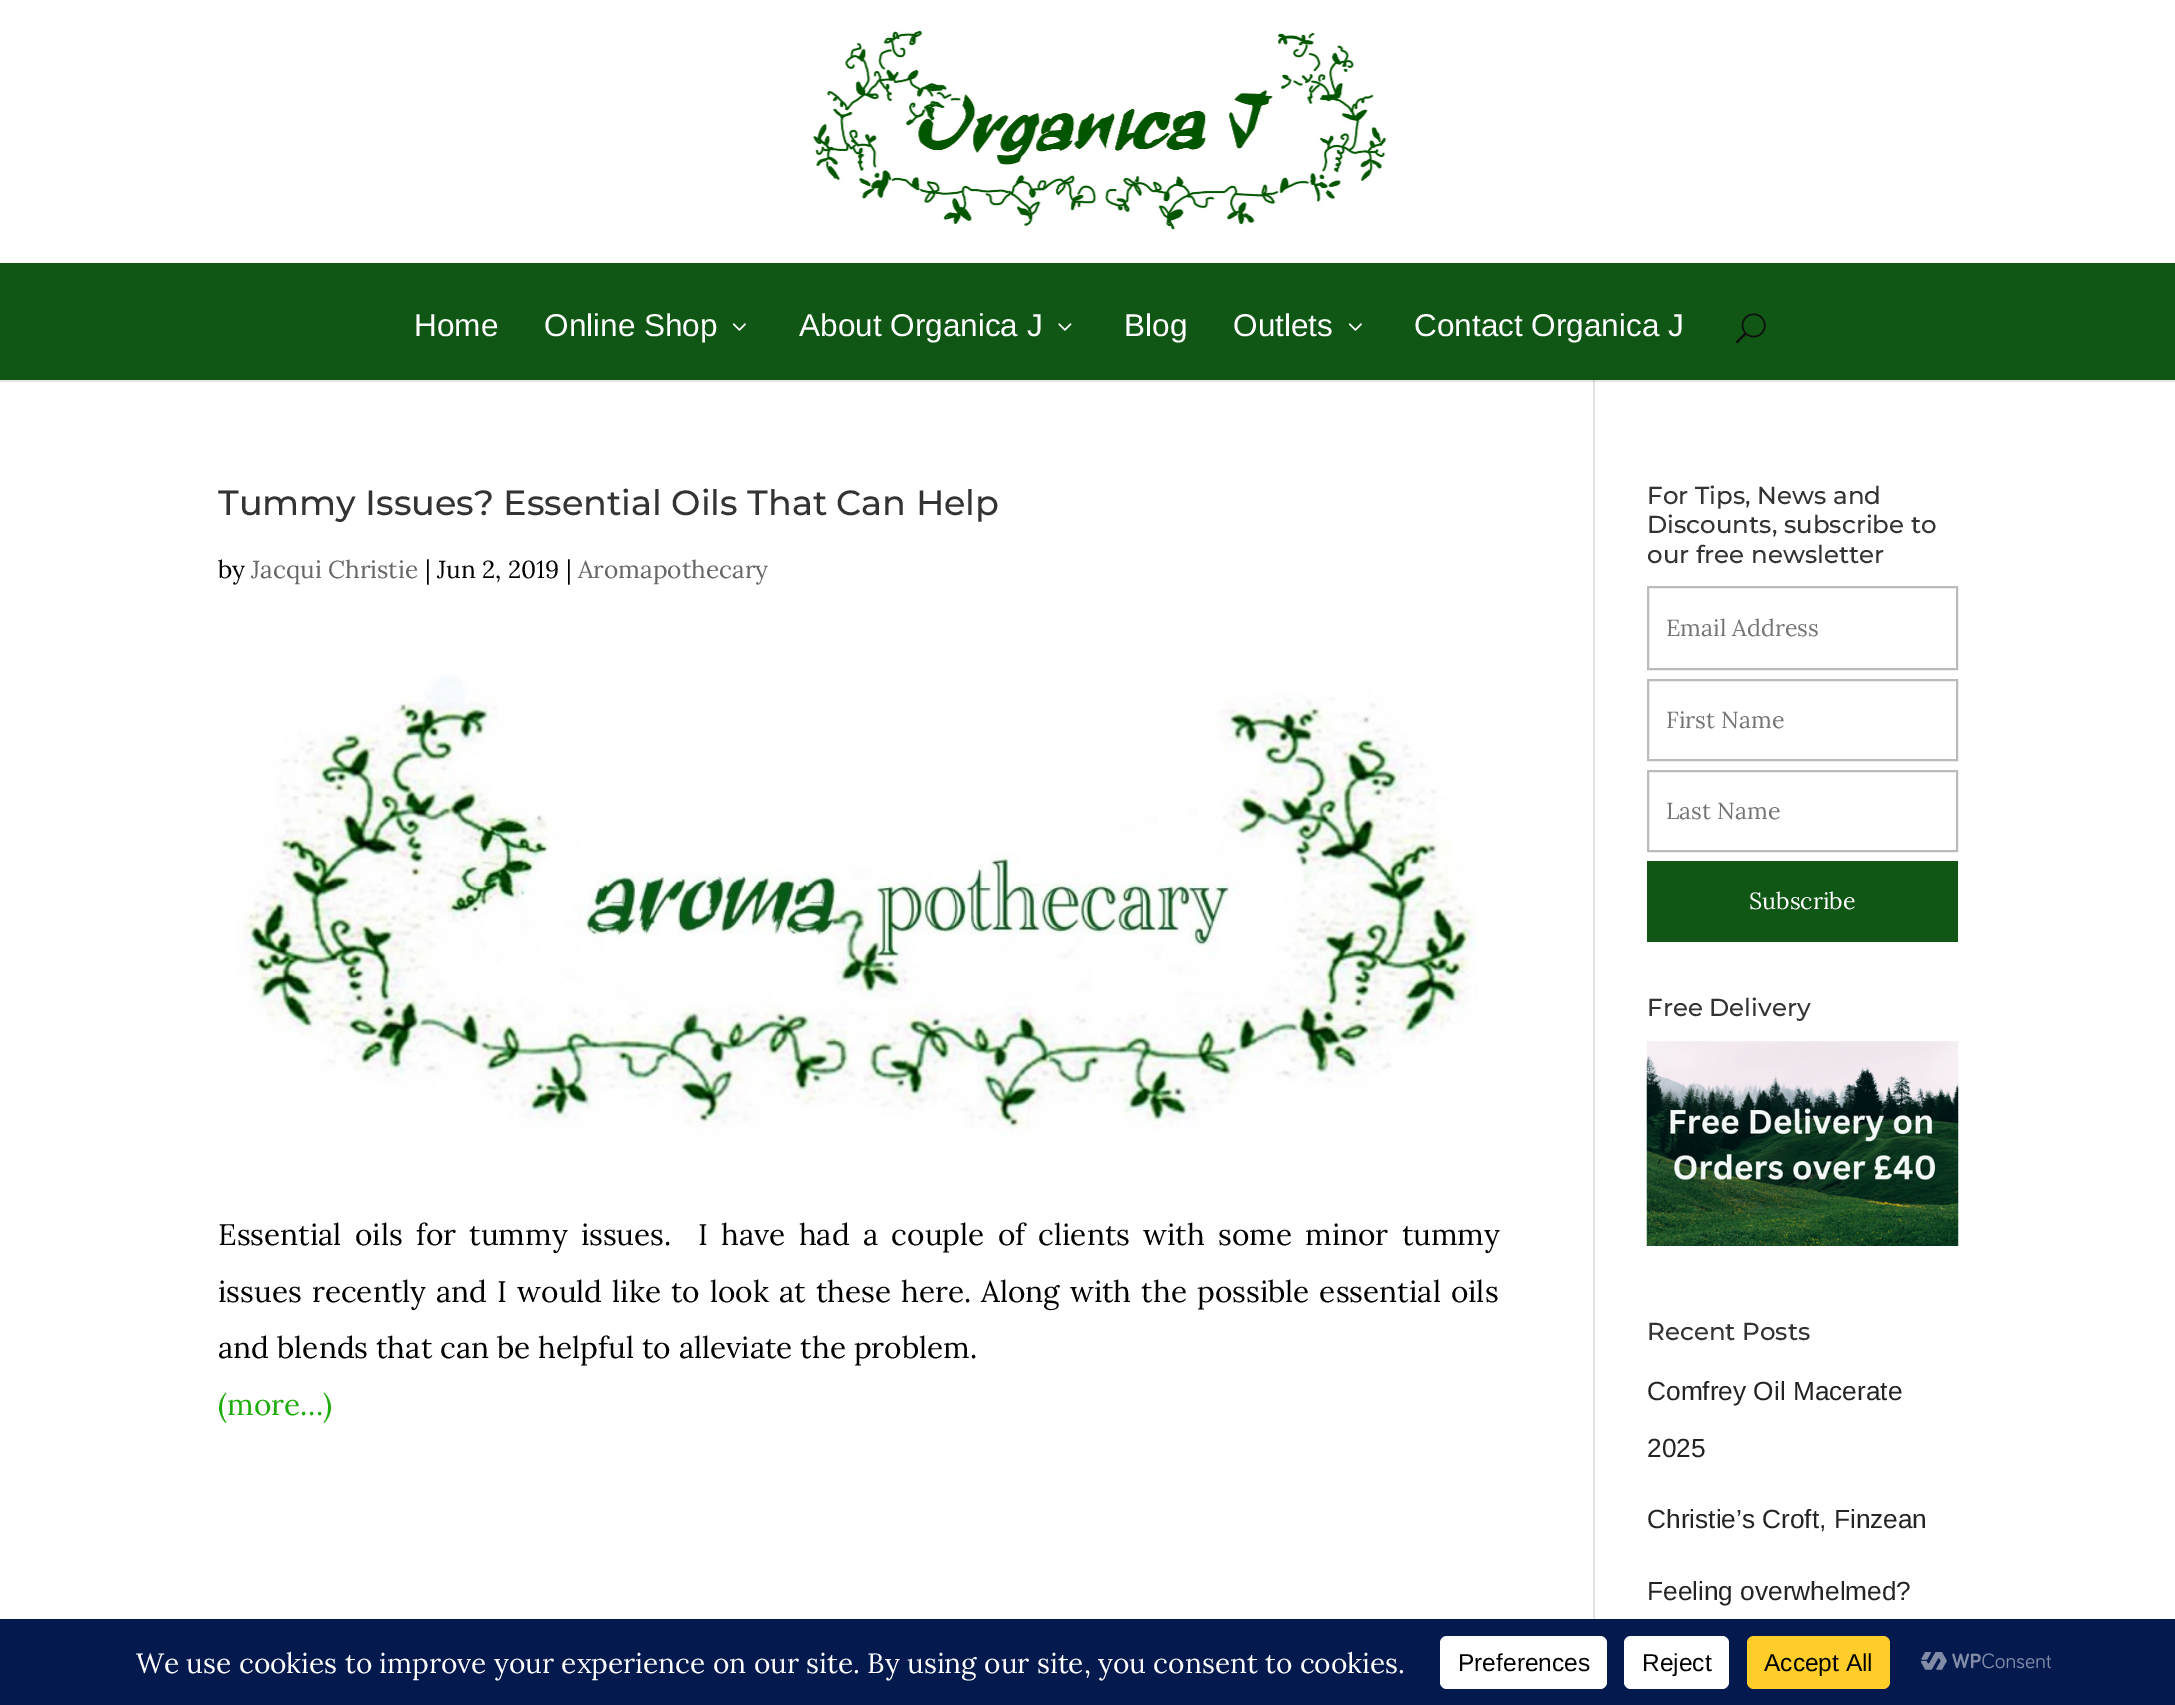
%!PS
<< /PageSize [2175 1705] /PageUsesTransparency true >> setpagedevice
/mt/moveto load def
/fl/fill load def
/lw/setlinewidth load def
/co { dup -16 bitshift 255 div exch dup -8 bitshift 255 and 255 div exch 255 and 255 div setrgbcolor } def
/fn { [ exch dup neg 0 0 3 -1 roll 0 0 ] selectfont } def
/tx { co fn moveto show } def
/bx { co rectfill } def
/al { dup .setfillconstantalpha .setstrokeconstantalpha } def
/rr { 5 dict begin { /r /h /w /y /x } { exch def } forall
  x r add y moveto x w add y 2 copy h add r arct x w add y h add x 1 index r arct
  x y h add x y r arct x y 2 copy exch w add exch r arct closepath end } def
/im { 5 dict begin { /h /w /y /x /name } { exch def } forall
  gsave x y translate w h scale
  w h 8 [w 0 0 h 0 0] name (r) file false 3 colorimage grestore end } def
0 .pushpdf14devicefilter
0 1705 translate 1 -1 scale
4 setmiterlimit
0 0 2175 1705 16#FFFFFF bx
1593 380 2 1239 16#E2E2E2 bx
0.1 al
0 380 2175 2 16#000000 bx
1 al
(media/1.raw) 813 30 574 200 im
0 263 2175 117 16#105615 bx
(media/2.raw) 732 323 14 8 im
(media/3.raw) 1058 323 14 8 im
(media/2.raw) 1348 323 14 8 im
(media/4.raw) 1736 313 30 31 im
(media/5.raw) 238 675 1240 460 im
16#BBBBBB co
2 lw
1648 587 309 82 rectstroke
1648 680 309 80 rectstroke
1648 771 309 80 rectstroke
1647 861 311 81 16#105615 bx
(media/6.raw) 1646 1041 313 205 im
0 1619 2175 86 16#04194E bx
16#FFFFFF co
1440 1636 167 53 7 rr fl
1624 1636 105 53 7 rr fl
16#FFCD2A co
1747 1636 143 53 7 rr fl
(media/7.raw) 1921 1652 130 18 im
(Home) 414 336 /LiberationSans-Regular 31.5 16#FFFFFF tx
(Online Shop) 544 336 /LiberationSans-Regular 31.5 16#FFFFFF tx
(About Organica J) 799 336 /LiberationSans-Regular 31.5 16#FFFFFF tx
(Blog) 1124 336 /LiberationSans-Regular 31.5 16#FFFFFF tx
(Outlets) 1233 336 /LiberationSans-Regular 31.5 16#FFFFFF tx
(Contact Organica J) 1414 336 /LiberationSans-Regular 31.5 16#FFFFFF tx
(Tummy Issues? Essential Oils That Can Help) 218 515 /Montserrat-Medium 35 16#333333 tx
(by) 218 578 /Lora-Regular 24.5 16#000000 tx
(Jacqui Christie) 251 578 /Lora-Regular 24.5 16#666666 tx
(| Jun 2, 2019 |) 425 578 /Lora-Regular 24.5 16#000000 tx
(Aromapothecary) 578 578 /Lora-Regular 24.5 16#666666 tx
/Lora-Regular 29.75 fn
16#000000 co
218 1245 mt 5.4 0 32 (Essential oils for tummy issues.  I have had a couple of clients with some minor tummy) widthshow
218 1302 mt 2.25 0 32 (issues recently and I would like to look at these here.) widthshow
981 1302 mt 2.25 0 32 (Along with the possible essential oils) widthshow
(and blends that can be helpful to alleviate the problem.) 218 1358 /Lora-Regular 29.75 16#000000 tx
(\(more…\)) 218 1415 /Lora-Regular 29.75 16#1EAD0C tx
(For Tips, News and) 1647 504 /Montserrat-Medium 24.5 16#333333 tx
(Discounts, subscribe to) 1647 533 /Montserrat-Medium 24.5 16#333333 tx
(our free newsletter) 1647 563 /Montserrat-Medium 24.5 16#333333 tx
(Email Address) 1666 636 /Lora-Regular 23.25 16#757575 tx
(First Name) 1666 728 /Lora-Regular 23.25 16#757575 tx
(Last Name) 1666 819 /Lora-Regular 23.25 16#757575 tx
(Subscribe) 1749 909 /Lora-Regular 23.25 16#FFFFFF tx
(Free Delivery) 1647 1016 /Montserrat-Medium 24.5 16#333333 tx
(Recent Posts) 1647 1340 /Montserrat-Medium 24.5 16#333333 tx
(Comfrey Oil Macerate) 1647 1400 /LiberationSans-Regular 26.25 16#232323 tx
(2025) 1647 1457 /LiberationSans-Regular 26.25 16#232323 tx
(Christie’s Croft, Finzean) 1647 1528 /LiberationSans-Regular 26.25 16#232323 tx
(Feeling overwhelmed?) 1647 1600 /LiberationSans-Regular 26.25 16#232323 tx
(We use cookies to improve your experience on our site. By using our site, you consent to cookies.) 136 1673 /Lora-Regular 28 16#FFFFFF tx
(Preferences) 1458 1671 /LiberationSans-Regular 24.5 16#000000 tx
(Reject) 1642 1671 /LiberationSans-Regular 24.5 16#000000 tx
(Accept All) 1764 1671 /LiberationSans-Regular 24.5 16#000000 tx
.poppdf14devicefilter showpage
